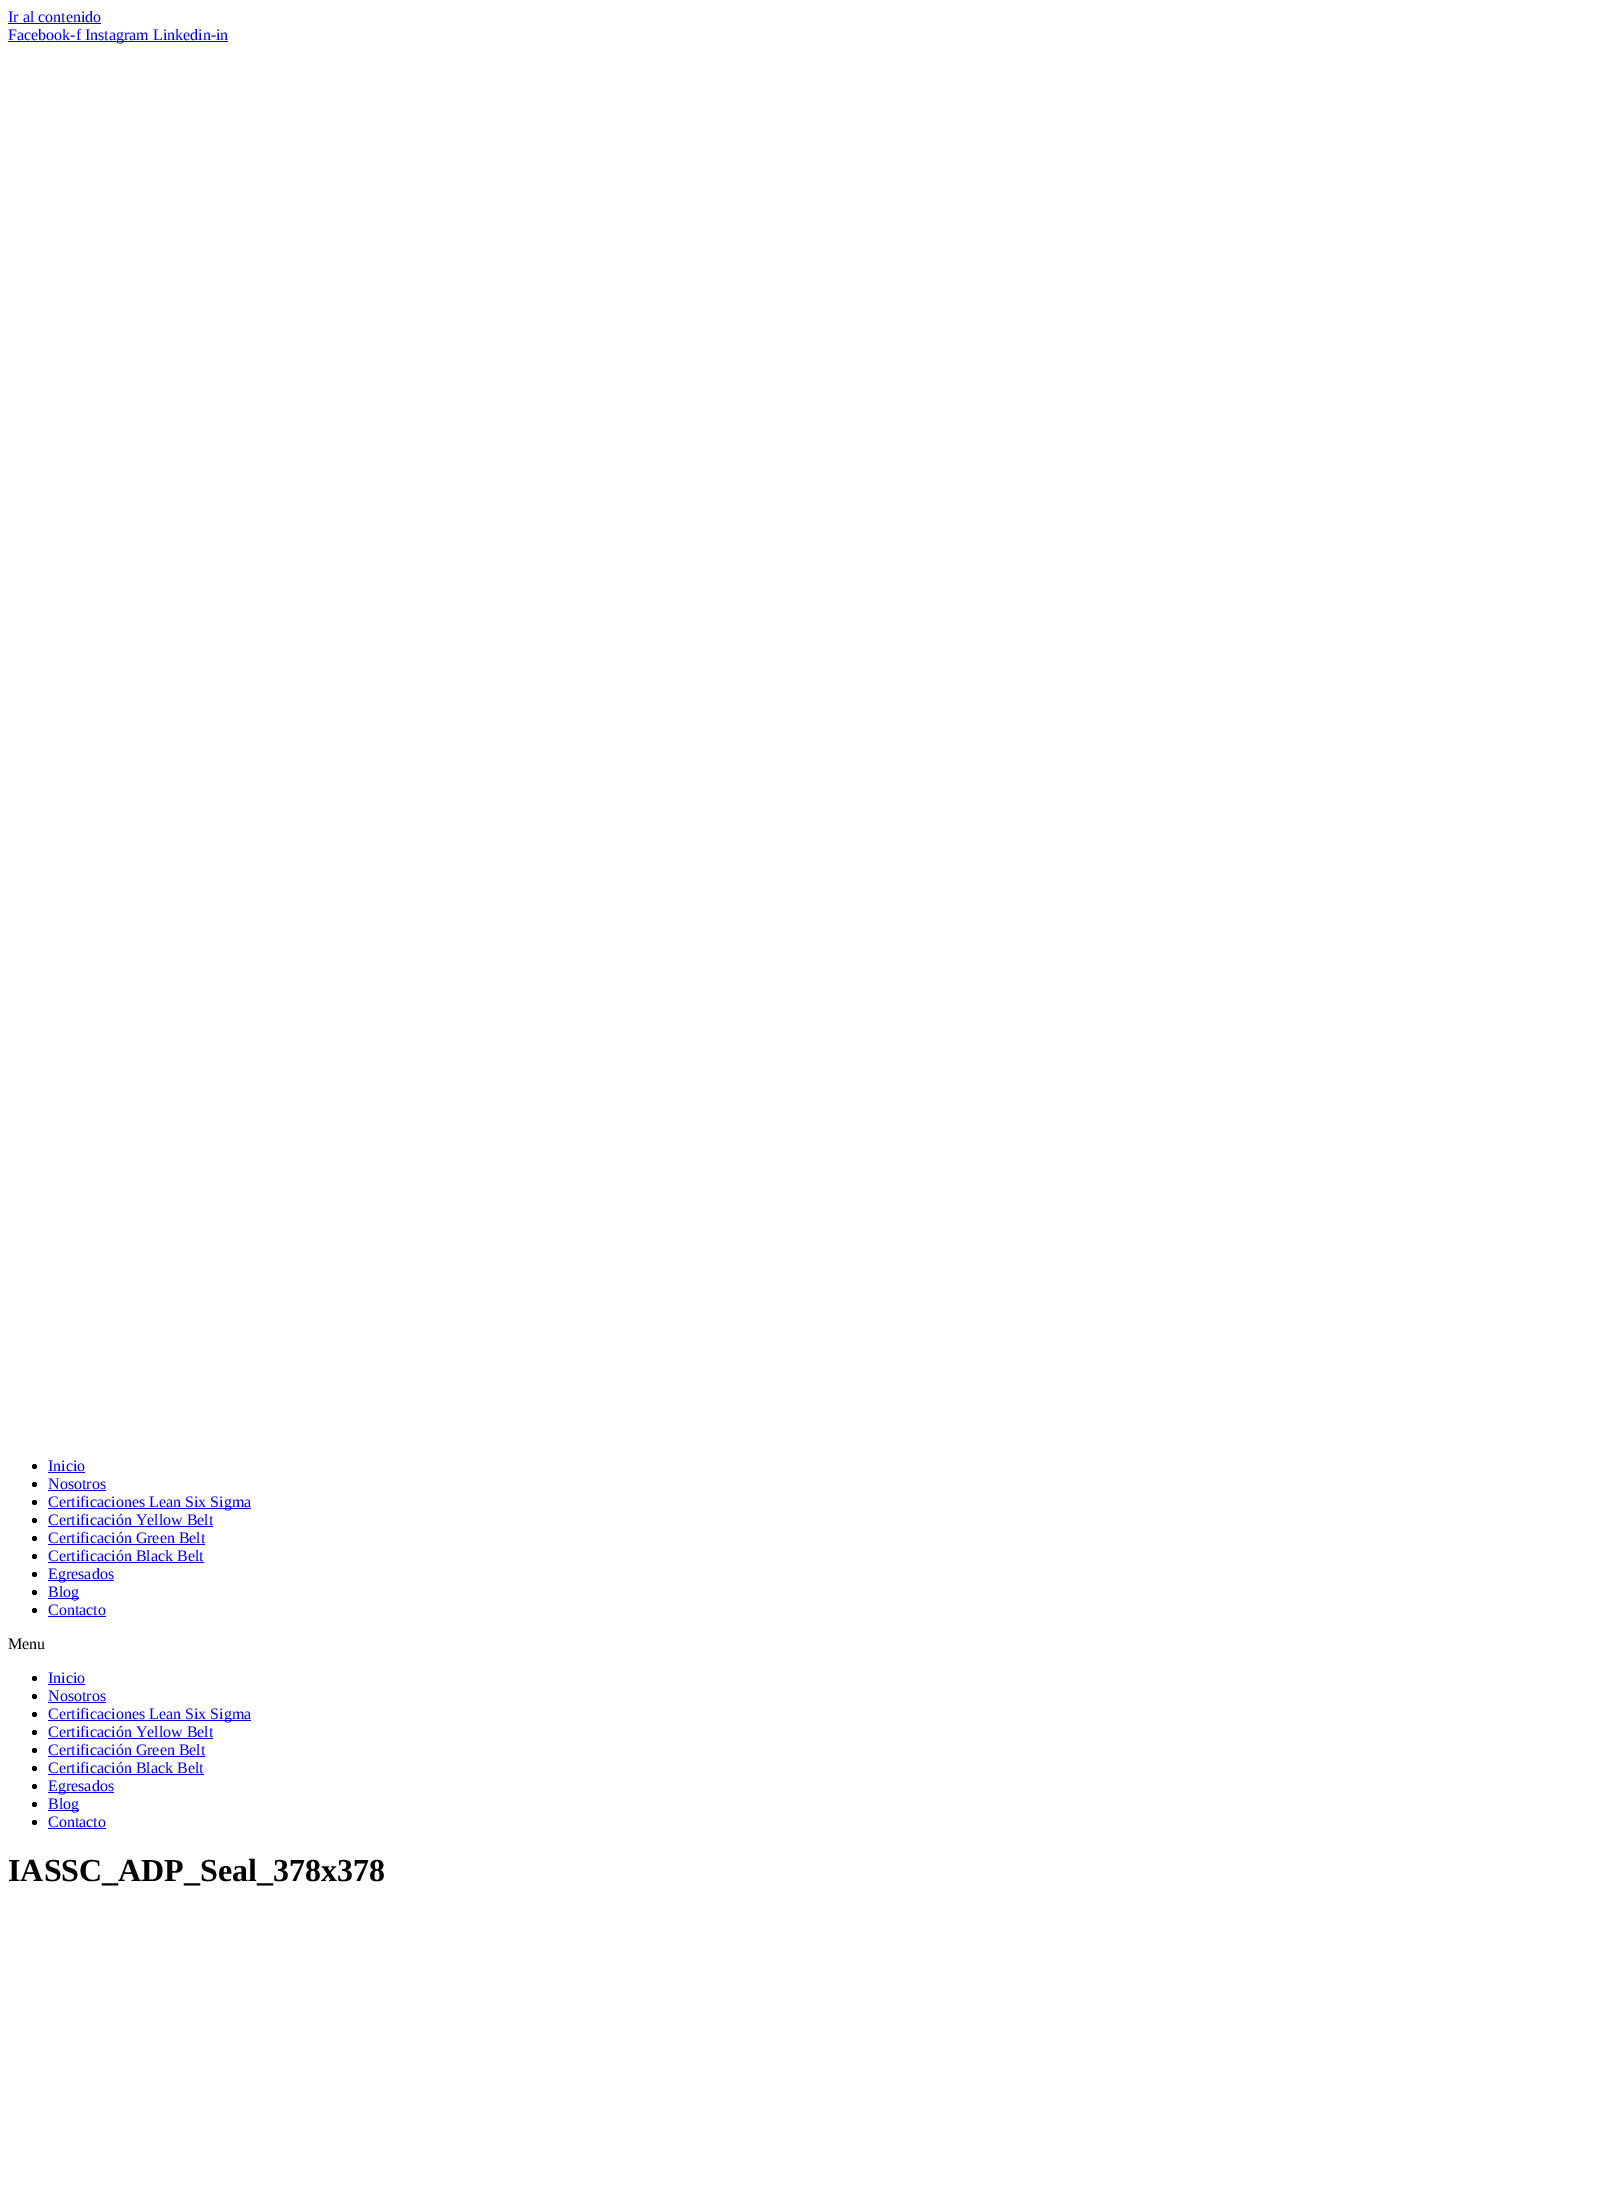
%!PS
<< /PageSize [1620 2187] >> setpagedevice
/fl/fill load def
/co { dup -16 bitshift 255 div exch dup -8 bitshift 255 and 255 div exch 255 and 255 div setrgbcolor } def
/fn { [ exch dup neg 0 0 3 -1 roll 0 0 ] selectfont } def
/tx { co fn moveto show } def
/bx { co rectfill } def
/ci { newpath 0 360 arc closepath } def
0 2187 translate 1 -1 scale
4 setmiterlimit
0 0 1620 2187 16#FFFFFF bx
8 23 93 1 16#0000EE bx
8 41 220 1 16#0000EE bx
16#000000 co
34.5 1466.5 2.5 ci fl
48 1472 37 1 16#0000EE bx
16#000000 co
34.5 1484.5 2.5 ci fl
48 1490 58 1 16#0000EE bx
16#000000 co
34.5 1502.5 2.5 ci fl
48 1508 203 1 16#0000EE bx
16#000000 co
34.5 1520.5 2.5 ci fl
48 1526 165 1 16#0000EE bx
16#000000 co
34.5 1538.5 2.5 ci fl
48 1544 157 1 16#0000EE bx
16#000000 co
34.5 1556.5 2.5 ci fl
48 1562 156 1 16#0000EE bx
16#000000 co
34.5 1574.5 2.5 ci fl
48 1580 66 1 16#0000EE bx
16#000000 co
34.5 1592.5 2.5 ci fl
48 1598 31 1 16#0000EE bx
16#000000 co
34.5 1610.5 2.5 ci fl
48 1616 58 1 16#0000EE bx
16#000000 co
34.5 1678.5 2.5 ci fl
48 1684 37 1 16#0000EE bx
16#000000 co
34.5 1696.5 2.5 ci fl
48 1702 58 1 16#0000EE bx
16#000000 co
34.5 1714.5 2.5 ci fl
48 1720 203 1 16#0000EE bx
16#000000 co
34.5 1732.5 2.5 ci fl
48 1738 165 1 16#0000EE bx
16#000000 co
34.5 1750.5 2.5 ci fl
48 1756 157 1 16#0000EE bx
16#000000 co
34.5 1768.5 2.5 ci fl
48 1774 156 1 16#0000EE bx
16#000000 co
34.5 1786.5 2.5 ci fl
48 1792 66 1 16#0000EE bx
16#000000 co
34.5 1804.5 2.5 ci fl
48 1810 31 1 16#0000EE bx
16#000000 co
34.5 1822.5 2.5 ci fl
48 1828 58 1 16#0000EE bx
(Ir al contenido) 8 22 /LiberationSerif-Regular 16 16#0000EE tx
(Facebook-f Instagram Linkedin-in) 8 40 /LiberationSerif-Regular 16 16#0000EE tx
(Inicio) 48 1471 /LiberationSerif-Regular 16 16#0000EE tx
(Nosotros) 48 1489 /LiberationSerif-Regular 16 16#0000EE tx
(Certificaciones Lean Six Sigma) 48 1507 /LiberationSerif-Regular 16 16#0000EE tx
(Certificación Yellow Belt) 48 1525 /LiberationSerif-Regular 16 16#0000EE tx
(Certificación Green Belt) 48 1543 /LiberationSerif-Regular 16 16#0000EE tx
(Certificación Black Belt) 48 1561 /LiberationSerif-Regular 16 16#0000EE tx
(Egresados) 48 1579 /LiberationSerif-Regular 16 16#0000EE tx
(Blog) 48 1597 /LiberationSerif-Regular 16 16#0000EE tx
(Contacto) 48 1615 /LiberationSerif-Regular 16 16#0000EE tx
(Menu) 8 1649 /LiberationSerif-Regular 16 16#000000 tx
(Inicio) 48 1683 /LiberationSerif-Regular 16 16#0000EE tx
(Nosotros) 48 1701 /LiberationSerif-Regular 16 16#0000EE tx
(Certificaciones Lean Six Sigma) 48 1719 /LiberationSerif-Regular 16 16#0000EE tx
(Certificación Yellow Belt) 48 1737 /LiberationSerif-Regular 16 16#0000EE tx
(Certificación Green Belt) 48 1755 /LiberationSerif-Regular 16 16#0000EE tx
(Certificación Black Belt) 48 1773 /LiberationSerif-Regular 16 16#0000EE tx
(Egresados) 48 1791 /LiberationSerif-Regular 16 16#0000EE tx
(Blog) 48 1809 /LiberationSerif-Regular 16 16#0000EE tx
(Contacto) 48 1827 /LiberationSerif-Regular 16 16#0000EE tx
(IASSC_ADP_Seal_378x378) 8 1881 /LiberationSerif-Bold 32 16#000000 tx
showpage
